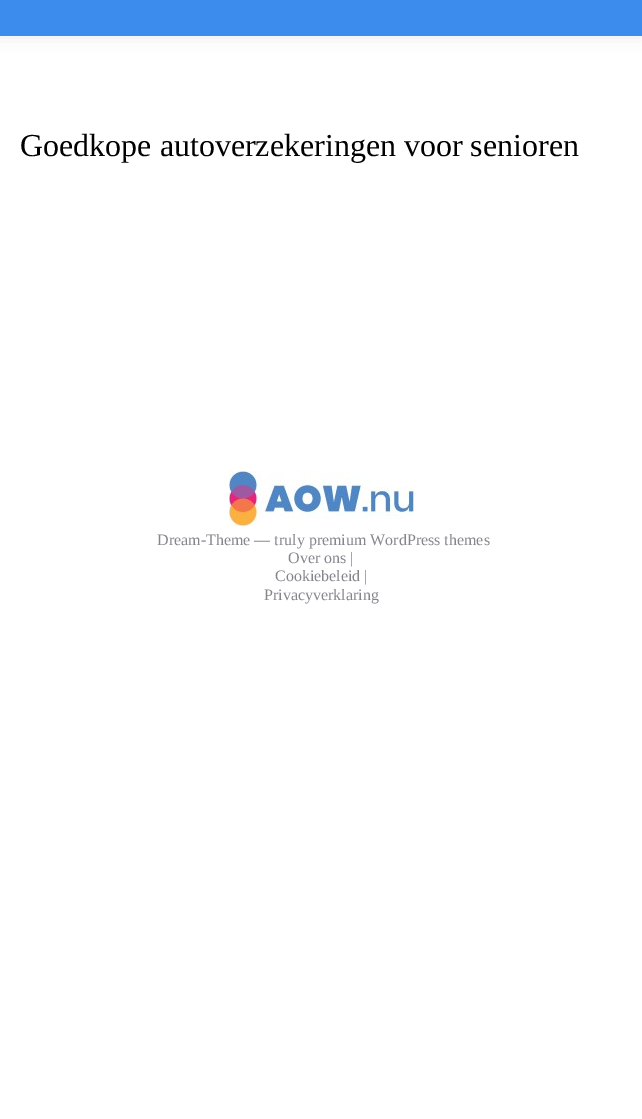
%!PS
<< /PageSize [642 1119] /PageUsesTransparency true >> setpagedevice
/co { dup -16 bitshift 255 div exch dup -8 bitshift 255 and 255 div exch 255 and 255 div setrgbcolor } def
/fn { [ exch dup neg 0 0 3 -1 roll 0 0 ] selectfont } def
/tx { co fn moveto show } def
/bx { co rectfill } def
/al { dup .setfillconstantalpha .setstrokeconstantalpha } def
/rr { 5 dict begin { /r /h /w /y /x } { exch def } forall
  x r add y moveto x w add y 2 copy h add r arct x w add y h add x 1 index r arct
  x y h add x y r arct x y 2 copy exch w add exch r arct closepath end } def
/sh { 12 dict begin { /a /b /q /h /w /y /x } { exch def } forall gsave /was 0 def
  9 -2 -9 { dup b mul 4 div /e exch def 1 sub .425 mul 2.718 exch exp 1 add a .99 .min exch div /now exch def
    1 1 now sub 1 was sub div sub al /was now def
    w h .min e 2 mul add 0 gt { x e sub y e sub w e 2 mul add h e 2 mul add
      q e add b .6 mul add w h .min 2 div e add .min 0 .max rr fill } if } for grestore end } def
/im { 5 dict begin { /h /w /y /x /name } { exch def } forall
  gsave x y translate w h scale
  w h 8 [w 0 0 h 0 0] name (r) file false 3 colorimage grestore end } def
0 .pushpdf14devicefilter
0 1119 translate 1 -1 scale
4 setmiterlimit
0 0 642 1119 16#FFFFFF bx
16#000000 co
-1 -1 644 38 0 7.5 .07 sh
0 0 642 36 16#3B8CED bx
(media/1.raw) 229 471 185 55 im
(Goedkope autoverzekeringen voor senioren) 20 156 /LiberationSerif-Regular 32 16#000000 tx
(Dream-Theme — truly premium WordPress themes) 157 545 /LiberationSerif-Regular 16 16#85868C tx
(Over ons |) 288 563 /LiberationSerif-Regular 16 16#85868C tx
(Cookiebeleid |) 275 581 /LiberationSerif-Regular 16 16#85868C tx
(Privacyverklaring) 264 600 /LiberationSerif-Regular 16 16#85868C tx
.poppdf14devicefilter showpage
